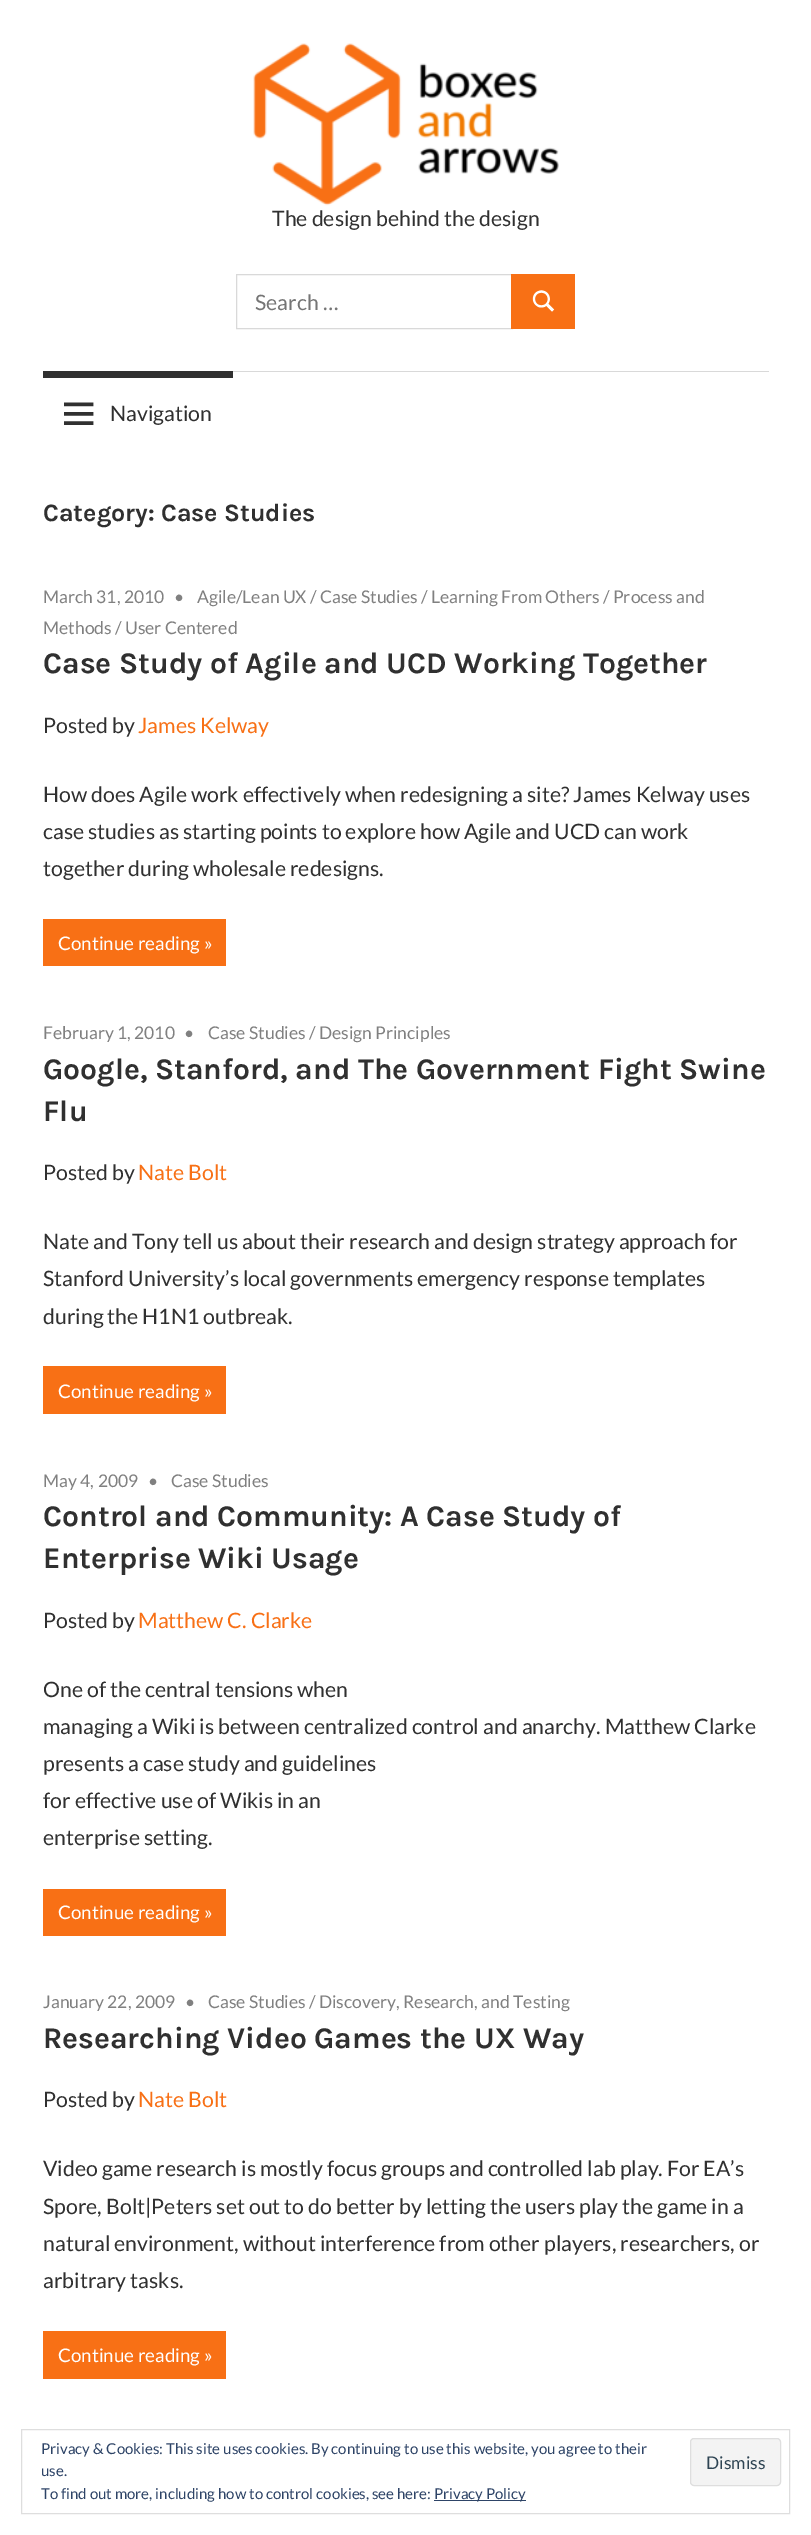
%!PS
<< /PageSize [811 2535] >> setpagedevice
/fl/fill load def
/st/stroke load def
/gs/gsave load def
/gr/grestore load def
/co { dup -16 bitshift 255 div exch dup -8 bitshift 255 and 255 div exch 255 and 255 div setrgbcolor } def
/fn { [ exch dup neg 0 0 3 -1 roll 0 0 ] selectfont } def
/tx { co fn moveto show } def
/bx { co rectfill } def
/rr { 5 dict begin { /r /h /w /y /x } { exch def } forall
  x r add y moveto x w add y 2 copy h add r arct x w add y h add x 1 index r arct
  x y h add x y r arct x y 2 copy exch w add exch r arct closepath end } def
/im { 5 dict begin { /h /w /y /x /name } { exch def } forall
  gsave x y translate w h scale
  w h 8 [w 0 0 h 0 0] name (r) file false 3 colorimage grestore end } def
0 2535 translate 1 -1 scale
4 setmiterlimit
0 0 811 2535 16#FFFFFF bx
(media/1.raw) 253 43 306 163 im
16#D9D9D9 co
236.5 274.5 276 54 rectstroke
511 274 64 55 16#F87015 bx
(media/2.raw) 532 290 23 22 im
233 371 536 1 16#D9D9D9 bx
43 371 190 7 16#303030 bx
(media/3.raw) 64 402 30 23 im
43 919 183 47 16#F87015 bx
43 1366 183 48 16#F87015 bx
43 1889 183 47 16#F87015 bx
43 2331 183 48 16#F87015 bx
16#DEDEDE co
21.5 2429.5 768 84 rectstroke
16#F3F3F3 co
690.5 2438.5 90 47 3.5 rr gs fl gr
16#DEDEDE co
st
434 2500 92 1 16#2E4467 bx
(The design behind the design) 272 226 /Lato-Regular 21.25 16#303030 tx
(Search …) 255 310 /Lato-Regular 21.25 16#757575 tx
(Navigation) 110 421 /Lato-Regular 21.25 16#303030 tx
(Category: Case Studies) 43 521 /Karla-Bold 25 16#303030 tx
(March 31, 2010) 43 603 /Lato-Regular 17.5 16#808080 tx
(•) 174 603 /Lato-Regular 17.5 16#808080 tx
(Agile/Lean UX / Case Studies / Learning From Others / Process and) 197 603 /Lato-Regular 17.5 16#808080 tx
(Methods / User Centered) 43 634 /Lato-Regular 17.5 16#808080 tx
(Case Study of Agile and UCD Working Together) 43 673 /Karla-Bold 30 16#303030 tx
(Posted by) 43 733 /Lato-Regular 21.25 16#303030 tx
(James Kelway) 138 733 /Lato-Regular 21.25 16#F87015 tx
(How does Agile work effectively when redesigning a site? James Kelway uses) 43 802 /Lato-Regular 21.25 16#303030 tx
(case studies as starting points to explore how Agile and UCD can work) 43 839 /Lato-Regular 21.25 16#303030 tx
(together during wholesale redesigns.) 43 876 /Lato-Regular 21.25 16#303030 tx
(Continue reading ») 58 950 /Lato-Regular 18.75 16#FFFFFF tx
(February 1, 2010) 43 1039 /Lato-Regular 17.5 16#808080 tx
(•) 184 1039 /Lato-Regular 17.5 16#808080 tx
(Case Studies / Design Principles) 208 1039 /Lato-Regular 17.5 16#808080 tx
(Google, Stanford, and The Government Fight Swine) 43 1079 /Karla-Bold 30 16#303030 tx
(Flu) 43 1121 /Karla-Bold 30 16#303030 tx
(Posted by) 43 1180 /Lato-Regular 21.25 16#303030 tx
(Nate Bolt) 138 1180 /Lato-Regular 21.25 16#F87015 tx
(Nate and Tony tell us about their research and design strategy approach for) 43 1249 /Lato-Regular 21.25 16#303030 tx
(Stanford University’s local governments emergency response templates) 43 1286 /Lato-Regular 21.25 16#303030 tx
(during the H1N1 outbreak.) 43 1324 /Lato-Regular 21.25 16#303030 tx
(Continue reading ») 58 1398 /Lato-Regular 18.75 16#FFFFFF tx
(May 4, 2009) 43 1487 /Lato-Regular 17.5 16#808080 tx
(•) 148 1487 /Lato-Regular 17.5 16#808080 tx
(Case Studies) 171 1487 /Lato-Regular 17.5 16#808080 tx
(Control and Community: A Case Study of) 43 1526 /Karla-Bold 30 16#303030 tx
(Enterprise Wiki Usage) 43 1568 /Karla-Bold 30 16#303030 tx
(Posted by) 43 1628 /Lato-Regular 21.25 16#303030 tx
(Matthew C. Clarke) 138 1628 /Lato-Regular 21.25 16#F87015 tx
(One of the central tensions when) 43 1697 /Lato-Regular 21.25 16#303030 tx
(managing a Wiki is between centralized control and anarchy. Matthew Clarke) 43 1734 /Lato-Regular 21.25 16#303030 tx
(presents a case study and guidelines) 43 1771 /Lato-Regular 21.25 16#303030 tx
(for effective use of Wikis in an) 43 1808 /Lato-Regular 21.25 16#303030 tx
(enterprise setting.) 43 1845 /Lato-Regular 21.25 16#303030 tx
(Continue reading ») 58 1919 /Lato-Regular 18.75 16#FFFFFF tx
(January 22, 2009) 43 2008 /Lato-Regular 17.5 16#808080 tx
(•) 185 2008 /Lato-Regular 17.5 16#808080 tx
(Case Studies / Discovery, Research, and Testing) 208 2008 /Lato-Regular 17.5 16#808080 tx
(Researching Video Games the UX Way) 43 2048 /Karla-Bold 30 16#303030 tx
(Posted by) 43 2107 /Lato-Regular 21.25 16#303030 tx
(Nate Bolt) 138 2107 /Lato-Regular 21.25 16#F87015 tx
(Video game research is mostly focus groups and controlled lab play. For EA’s) 43 2176 /Lato-Regular 21.25 16#303030 tx
(Spore, Bolt|Peters set out to do better by letting the users play the game in a) 43 2214 /Lato-Regular 21.25 16#303030 tx
(natural environment, without interference from other players, researchers, or) 43 2251 /Lato-Regular 21.25 16#303030 tx
(arbitrary tasks.) 43 2288 /Lato-Regular 21.25 16#303030 tx
(Continue reading ») 58 2362 /Lato-Regular 18.75 16#FFFFFF tx
(Privacy & Cookies: This site uses cookies. By continuing to use this website, you agree to their) 41 2454 /Lato-Regular 15 16#2E4467 tx
(Dismiss) 706 2469 /Lato-Regular 17.5 16#2E4453 tx
(use.) 41 2476 /Lato-Regular 15 16#2E4467 tx
(To find out more, including how to control cookies, see here:) 41 2499 /Lato-Regular 15 16#2E4467 tx
(Privacy Policy) 434 2499 /Lato-Regular 15 16#2E4467 tx
showpage
